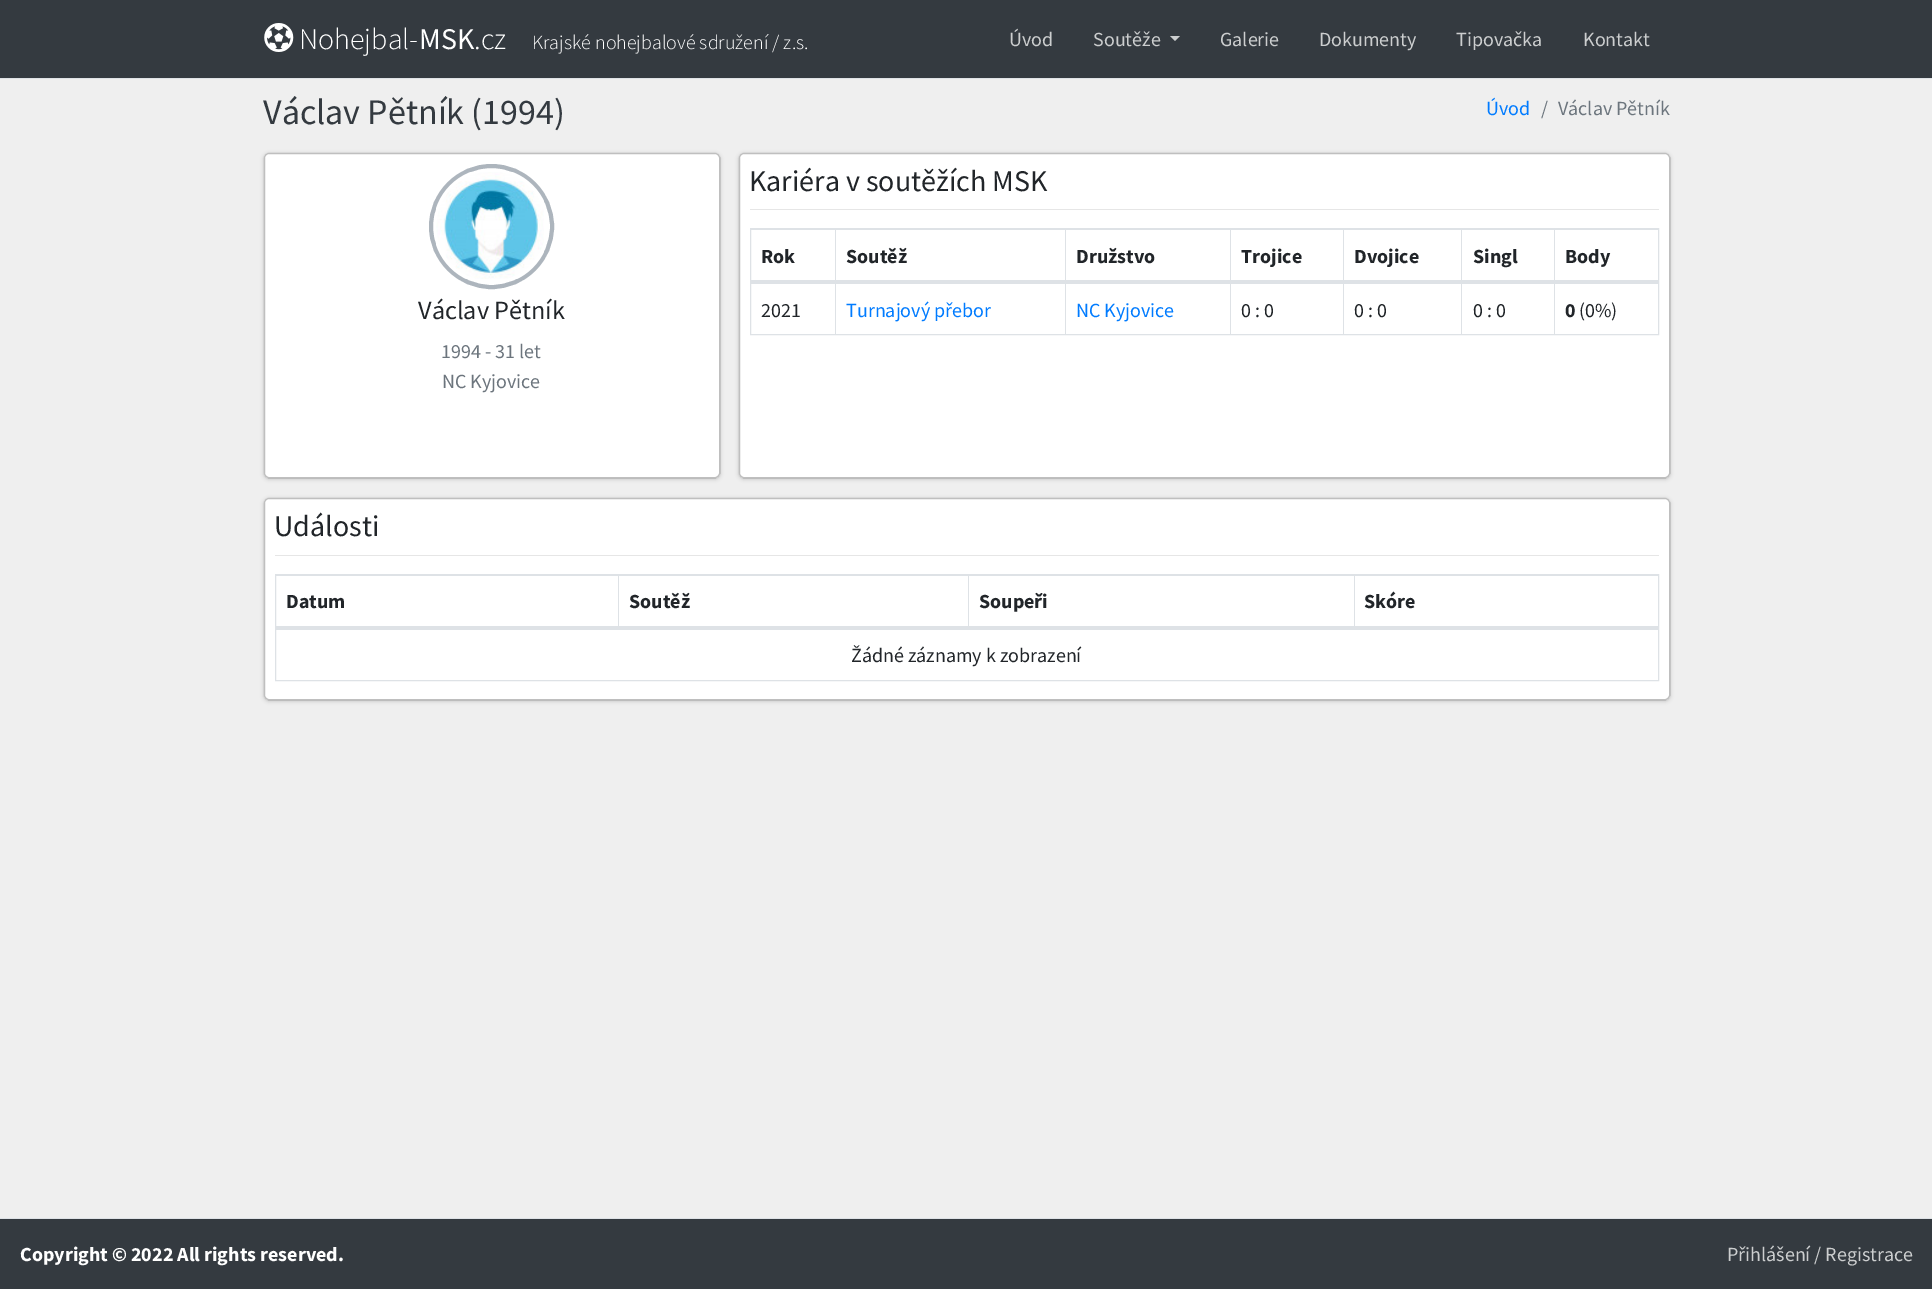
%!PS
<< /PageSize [1932 1296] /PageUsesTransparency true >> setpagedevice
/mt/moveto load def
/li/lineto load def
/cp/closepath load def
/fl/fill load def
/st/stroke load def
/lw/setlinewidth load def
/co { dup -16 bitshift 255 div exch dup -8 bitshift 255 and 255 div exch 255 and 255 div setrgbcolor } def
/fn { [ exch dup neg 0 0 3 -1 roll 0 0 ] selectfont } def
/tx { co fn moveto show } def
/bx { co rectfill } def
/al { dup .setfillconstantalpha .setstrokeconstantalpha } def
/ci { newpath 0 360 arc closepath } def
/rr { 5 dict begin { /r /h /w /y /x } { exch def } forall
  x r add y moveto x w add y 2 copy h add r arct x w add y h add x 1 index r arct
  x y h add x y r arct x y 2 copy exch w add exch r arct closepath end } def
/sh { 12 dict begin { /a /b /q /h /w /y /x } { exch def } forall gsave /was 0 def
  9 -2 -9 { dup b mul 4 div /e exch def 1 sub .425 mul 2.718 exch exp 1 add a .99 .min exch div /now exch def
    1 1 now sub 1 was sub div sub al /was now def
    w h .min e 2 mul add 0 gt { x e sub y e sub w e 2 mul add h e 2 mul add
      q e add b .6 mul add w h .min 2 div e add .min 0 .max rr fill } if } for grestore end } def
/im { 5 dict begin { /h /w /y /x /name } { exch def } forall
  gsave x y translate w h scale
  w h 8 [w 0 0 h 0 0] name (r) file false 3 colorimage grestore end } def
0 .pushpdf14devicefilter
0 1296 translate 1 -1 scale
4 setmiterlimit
0 0 1932 1296 16#FFFFFF bx
0 79 1932 1139 16#EFEFEF bx
0 0 1932 78 16#343A40 bx
0 78 1932 1 16#DEE2E6 bx
(media/1.raw) 264 23 30 29 im
16#CCCECF co
1170 36 mt 1180 36 li 1175 41 li cp fl
16#000000 co
739 154 931 325 5 2 .2 sh
739 153 931 325 5 .5 .12 sh
16#FFFFFF co
739 153 931 325 5 rr fl
0.25 al
16#000000 co
739.5 153.5 930 324 4.5 rr st
1 al
750 209 909 1 16#E6E6E6 bx
16#DEE2E6 co
750.5 228.5 908 106 rectstroke
751 229 907 1 16#DEE2E6 bx
835 229 1 54 16#DEE2E6 bx
751 280 85 4 16#DEE2E6 bx
1065 229 1 54 16#DEE2E6 bx
836 280 230 4 16#DEE2E6 bx
1230 229 1 54 16#DEE2E6 bx
1066 280 165 4 16#DEE2E6 bx
1343 229 1 54 16#DEE2E6 bx
1231 280 113 4 16#DEE2E6 bx
1461 229 1 54 16#DEE2E6 bx
1344 280 119 4 16#DEE2E6 bx
1554 229 1 54 16#DEE2E6 bx
1463 280 195 3 16#DEE2E6 bx
835 283 1 51 16#DEE2E6 bx
1065 283 1 51 16#DEE2E6 bx
1230 283 1 51 16#DEE2E6 bx
1343 283 1 51 16#DEE2E6 bx
1461 283 1 51 16#DEE2E6 bx
1463 283 195 1 16#DEE2E6 bx
1554 283 1 51 16#DEE2E6 bx
16#000000 co
264 154 456 325 5 2 .2 sh
264 153 456 325 5 .5 .12 sh
16#FFFFFF co
264 153 456 325 5 rr fl
0.25 al
16#000000 co
264.5 153.5 455 324 4.5 rr st
1 al
16#ADB5BD co
4 lw
491.5 226.5 60.5 ci st
(media/2.raw) 436 172 108 107 im
16#000000 co
264 499 1406 202 5 2 .2 sh
264 498 1406 202 5 .5 .12 sh
16#FFFFFF co
264 498 1406 202 5 rr fl
0.25 al
16#000000 co
1 lw
264.5 498.5 1405 201 4.5 rr st
1 al
275 555 1384 1 16#E6E6E6 bx
16#DEE2E6 co
275.5 574.5 1383 106 rectstroke
276 575 1382 1 16#DEE2E6 bx
618 575 1 54 16#DEE2E6 bx
276 626 343 3 16#DEE2E6 bx
968 575 1 54 16#DEE2E6 bx
619 626 350 3 16#DEE2E6 bx
1354 575 1 54 16#DEE2E6 bx
969 626 689 3 16#DEE2E6 bx
276 629 1382 1 16#DEE2E6 bx
0 1219 1932 70 16#343A40 bx
0 1218 1932 1 16#DEE2E6 bx
(Nohejbal-) 299 49 /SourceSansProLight-Light 30 16#FFFFFF tx
(MSK) 419 49 /SourceSansPro-Regular 30 16#FFFFFF tx
(.cz) 474 49 /SourceSansProLight-Light 30 16#FFFFFF tx
(Krajské nohejbalové sdružení / z.s.) 532 49 /SourceSansProLight-Light 20 16#FFFFFF tx
(Úvod) 1009 46 /SourceSansPro-Regular 20 16#CCCECF tx
(Soutěže) 1093 46 /SourceSansPro-Regular 20 16#CCCECF tx
(Galerie) 1220 46 /SourceSansPro-Regular 20 16#CCCECF tx
(Dokumenty) 1319 46 /SourceSansPro-Regular 20 16#CCCECF tx
(Tipovačka) 1456 46 /SourceSansPro-Regular 20 16#CCCECF tx
(Kontakt) 1583 46 /SourceSansPro-Regular 20 16#CCCECF tx
(Václav Pětník \(1994\)) 263 124 /SourceSansPro-Regular 36 16#343A40 tx
(Úvod) 1486 115 /SourceSansPro-Regular 20 16#007BFF tx
(/) 1541 115 /SourceSansPro-Regular 20 16#6C757D tx
(Václav Pětník) 1558 115 /SourceSansPro-Regular 20 16#6C757D tx
(Kariéra v soutěžích MSK) 749 191 /SourceSansPro-Regular 30 16#212529 tx
(Rok) 761 263 /SourceSansPro-Bold 20 16#212529 tx
(Soutěž) 846 263 /SourceSansPro-Bold 20 16#212529 tx
(Družstvo) 1076 263 /SourceSansPro-Bold 20 16#212529 tx
(Trojice) 1241 263 /SourceSansPro-Bold 20 16#212529 tx
(Dvojice) 1354 263 /SourceSansPro-Bold 20 16#212529 tx
(Singl) 1473 263 /SourceSansPro-Bold 20 16#212529 tx
(Body) 1565 263 /SourceSansPro-Bold 20 16#212529 tx
(2021) 761 317 /SourceSansPro-Regular 20 16#212529 tx
(Turnajový přebor) 846 317 /SourceSansPro-Regular 20 16#007BFF tx
(NC Kyjovice) 1076 317 /SourceSansPro-Regular 20 16#007BFF tx
(0 : 0) 1241 317 /SourceSansPro-Regular 20 16#212529 tx
(0 : 0) 1354 317 /SourceSansPro-Regular 20 16#212529 tx
(0 : 0) 1473 317 /SourceSansPro-Regular 20 16#212529 tx
(0) 1565 317 /SourceSansPro-Bold 20 16#212529 tx
(\(0%\)) 1579 317 /SourceSansPro-Regular 20 16#212529 tx
(Václav Pětník) 418 319 /SourceSansPro-Regular 26.25 16#212529 tx
(1994 - 31 let) 441 358 /SourceSansPro-Regular 20 16#6C757D tx
(NC Kyjovice) 442 388 /SourceSansPro-Regular 20 16#6C757D tx
(Události) 274 536 /SourceSansPro-Regular 30 16#212529 tx
(Datum) 286 608 /SourceSansPro-Bold 20 16#212529 tx
(Soutěž) 629 608 /SourceSansPro-Bold 20 16#212529 tx
(Soupeři) 979 608 /SourceSansPro-Bold 20 16#212529 tx
(Skóre) 1364 608 /SourceSansPro-Bold 20 16#212529 tx
(Žádné záznamy k zobrazení) 851 662 /SourceSansPro-Regular 20 16#212529 tx
(Copyright © 2022 All rights reserved.) 20 1261 /SourceSansPro-Bold 20 16#FFFFFF tx
(Přihlášení / Registrace) 1727 1261 /SourceSansPro-Regular 20 16#CCCECF tx
.poppdf14devicefilter showpage
